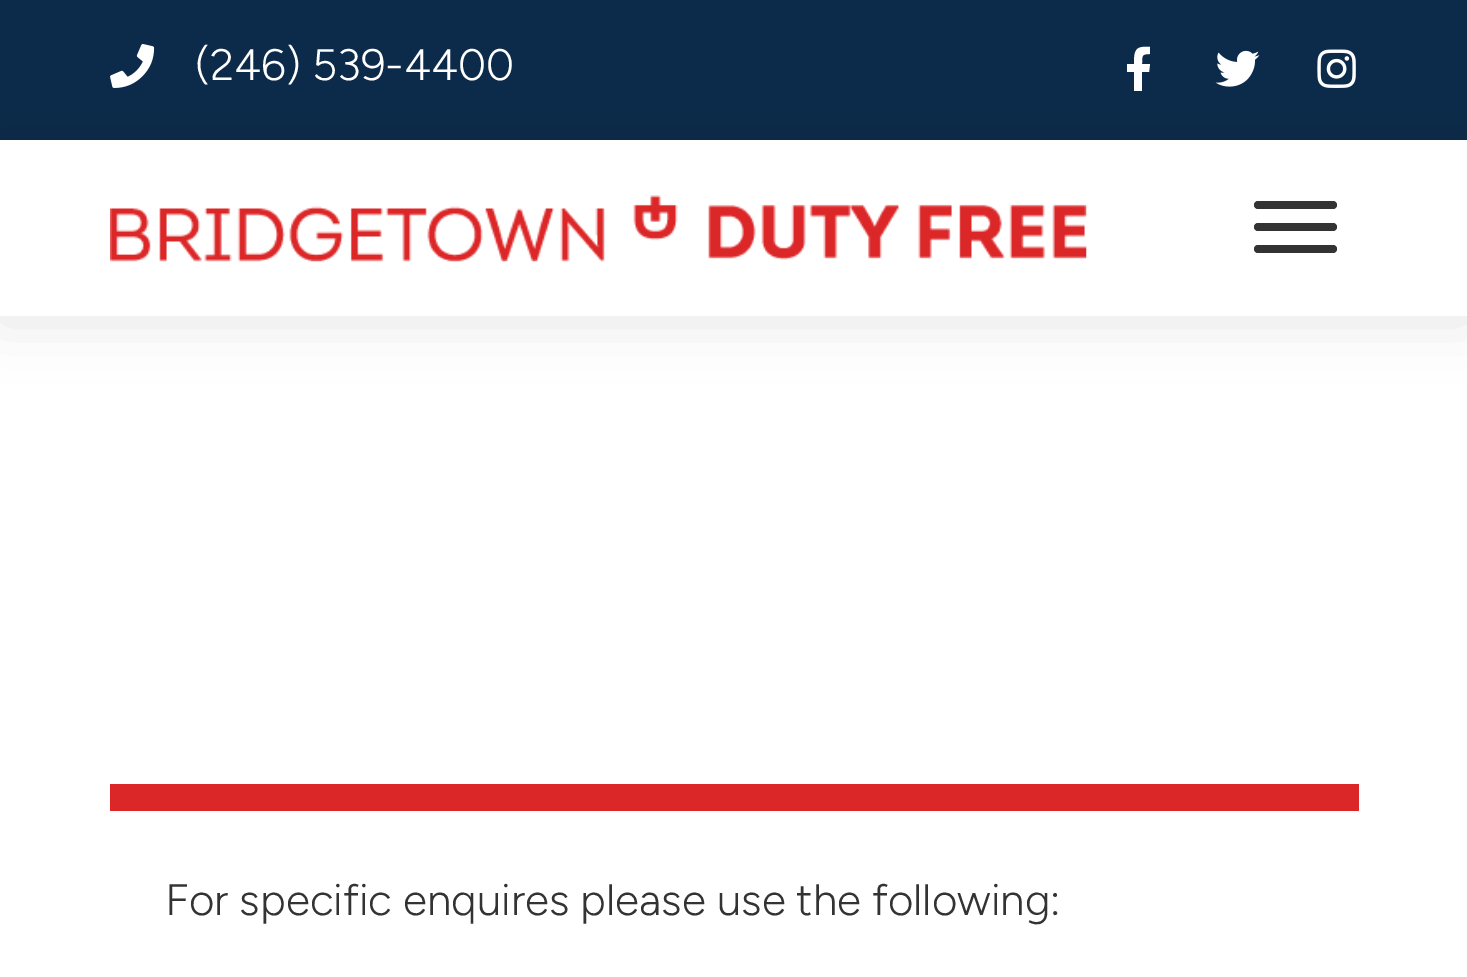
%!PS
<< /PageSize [1467 977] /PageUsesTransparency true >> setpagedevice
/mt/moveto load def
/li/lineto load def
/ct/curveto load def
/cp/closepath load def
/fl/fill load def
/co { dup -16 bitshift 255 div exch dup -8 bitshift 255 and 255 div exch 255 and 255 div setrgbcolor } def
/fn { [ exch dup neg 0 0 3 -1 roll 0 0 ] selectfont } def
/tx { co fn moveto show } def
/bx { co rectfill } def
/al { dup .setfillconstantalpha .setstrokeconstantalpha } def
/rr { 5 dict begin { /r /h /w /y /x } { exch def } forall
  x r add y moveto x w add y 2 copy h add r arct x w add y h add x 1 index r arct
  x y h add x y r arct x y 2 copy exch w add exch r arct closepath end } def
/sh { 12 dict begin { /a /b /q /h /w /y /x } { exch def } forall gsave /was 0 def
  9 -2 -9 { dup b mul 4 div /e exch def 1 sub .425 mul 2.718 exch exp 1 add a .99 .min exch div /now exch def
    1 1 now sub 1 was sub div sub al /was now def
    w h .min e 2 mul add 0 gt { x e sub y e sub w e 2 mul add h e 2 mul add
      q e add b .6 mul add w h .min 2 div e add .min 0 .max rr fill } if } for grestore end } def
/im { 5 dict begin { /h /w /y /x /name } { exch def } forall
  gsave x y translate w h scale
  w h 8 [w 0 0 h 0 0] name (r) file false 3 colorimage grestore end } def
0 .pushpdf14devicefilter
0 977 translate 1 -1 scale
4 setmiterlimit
0 0 1467 977 16#FFFFFF bx
0 0 1467 140 16#0C2B4A bx
(media/1.raw) 110 44 45 44 im
16#FFFFFF co
1149 72 mt 1142 72 li 1142 91 li 1134 91 li 1134 72 li 1127 72 li 1127 64 li 1134 64 li 1134 49 1136 46 1150 47 ct 1150 54 li 1142 54 1142 55 1142 64 ct 1150 64 li cp fl
(media/2.raw) 1215 50 45 37 im
(media/3.raw) 1317 49 39 39 im
16#000000 co
0 146 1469 176 0 27.5 .1 sh
0 140 1467 176 16#FFFFFF bx
(media/4.raw) 110 195 977 67 im
16#333333 co
1254 223 83 8 4 rr fl
1254 201 83 8 4 rr fl
1254 245 83 8 4 rr fl
110 784 1249 27 16#DC2728 bx
(\(246\) 539-4400) 195 80 /Figtree-Light 44 16#FFFFFF tx
(For specific enquires please use the following:) 165 915 /Figtree-Light 44 16#333333 tx
.poppdf14devicefilter showpage
